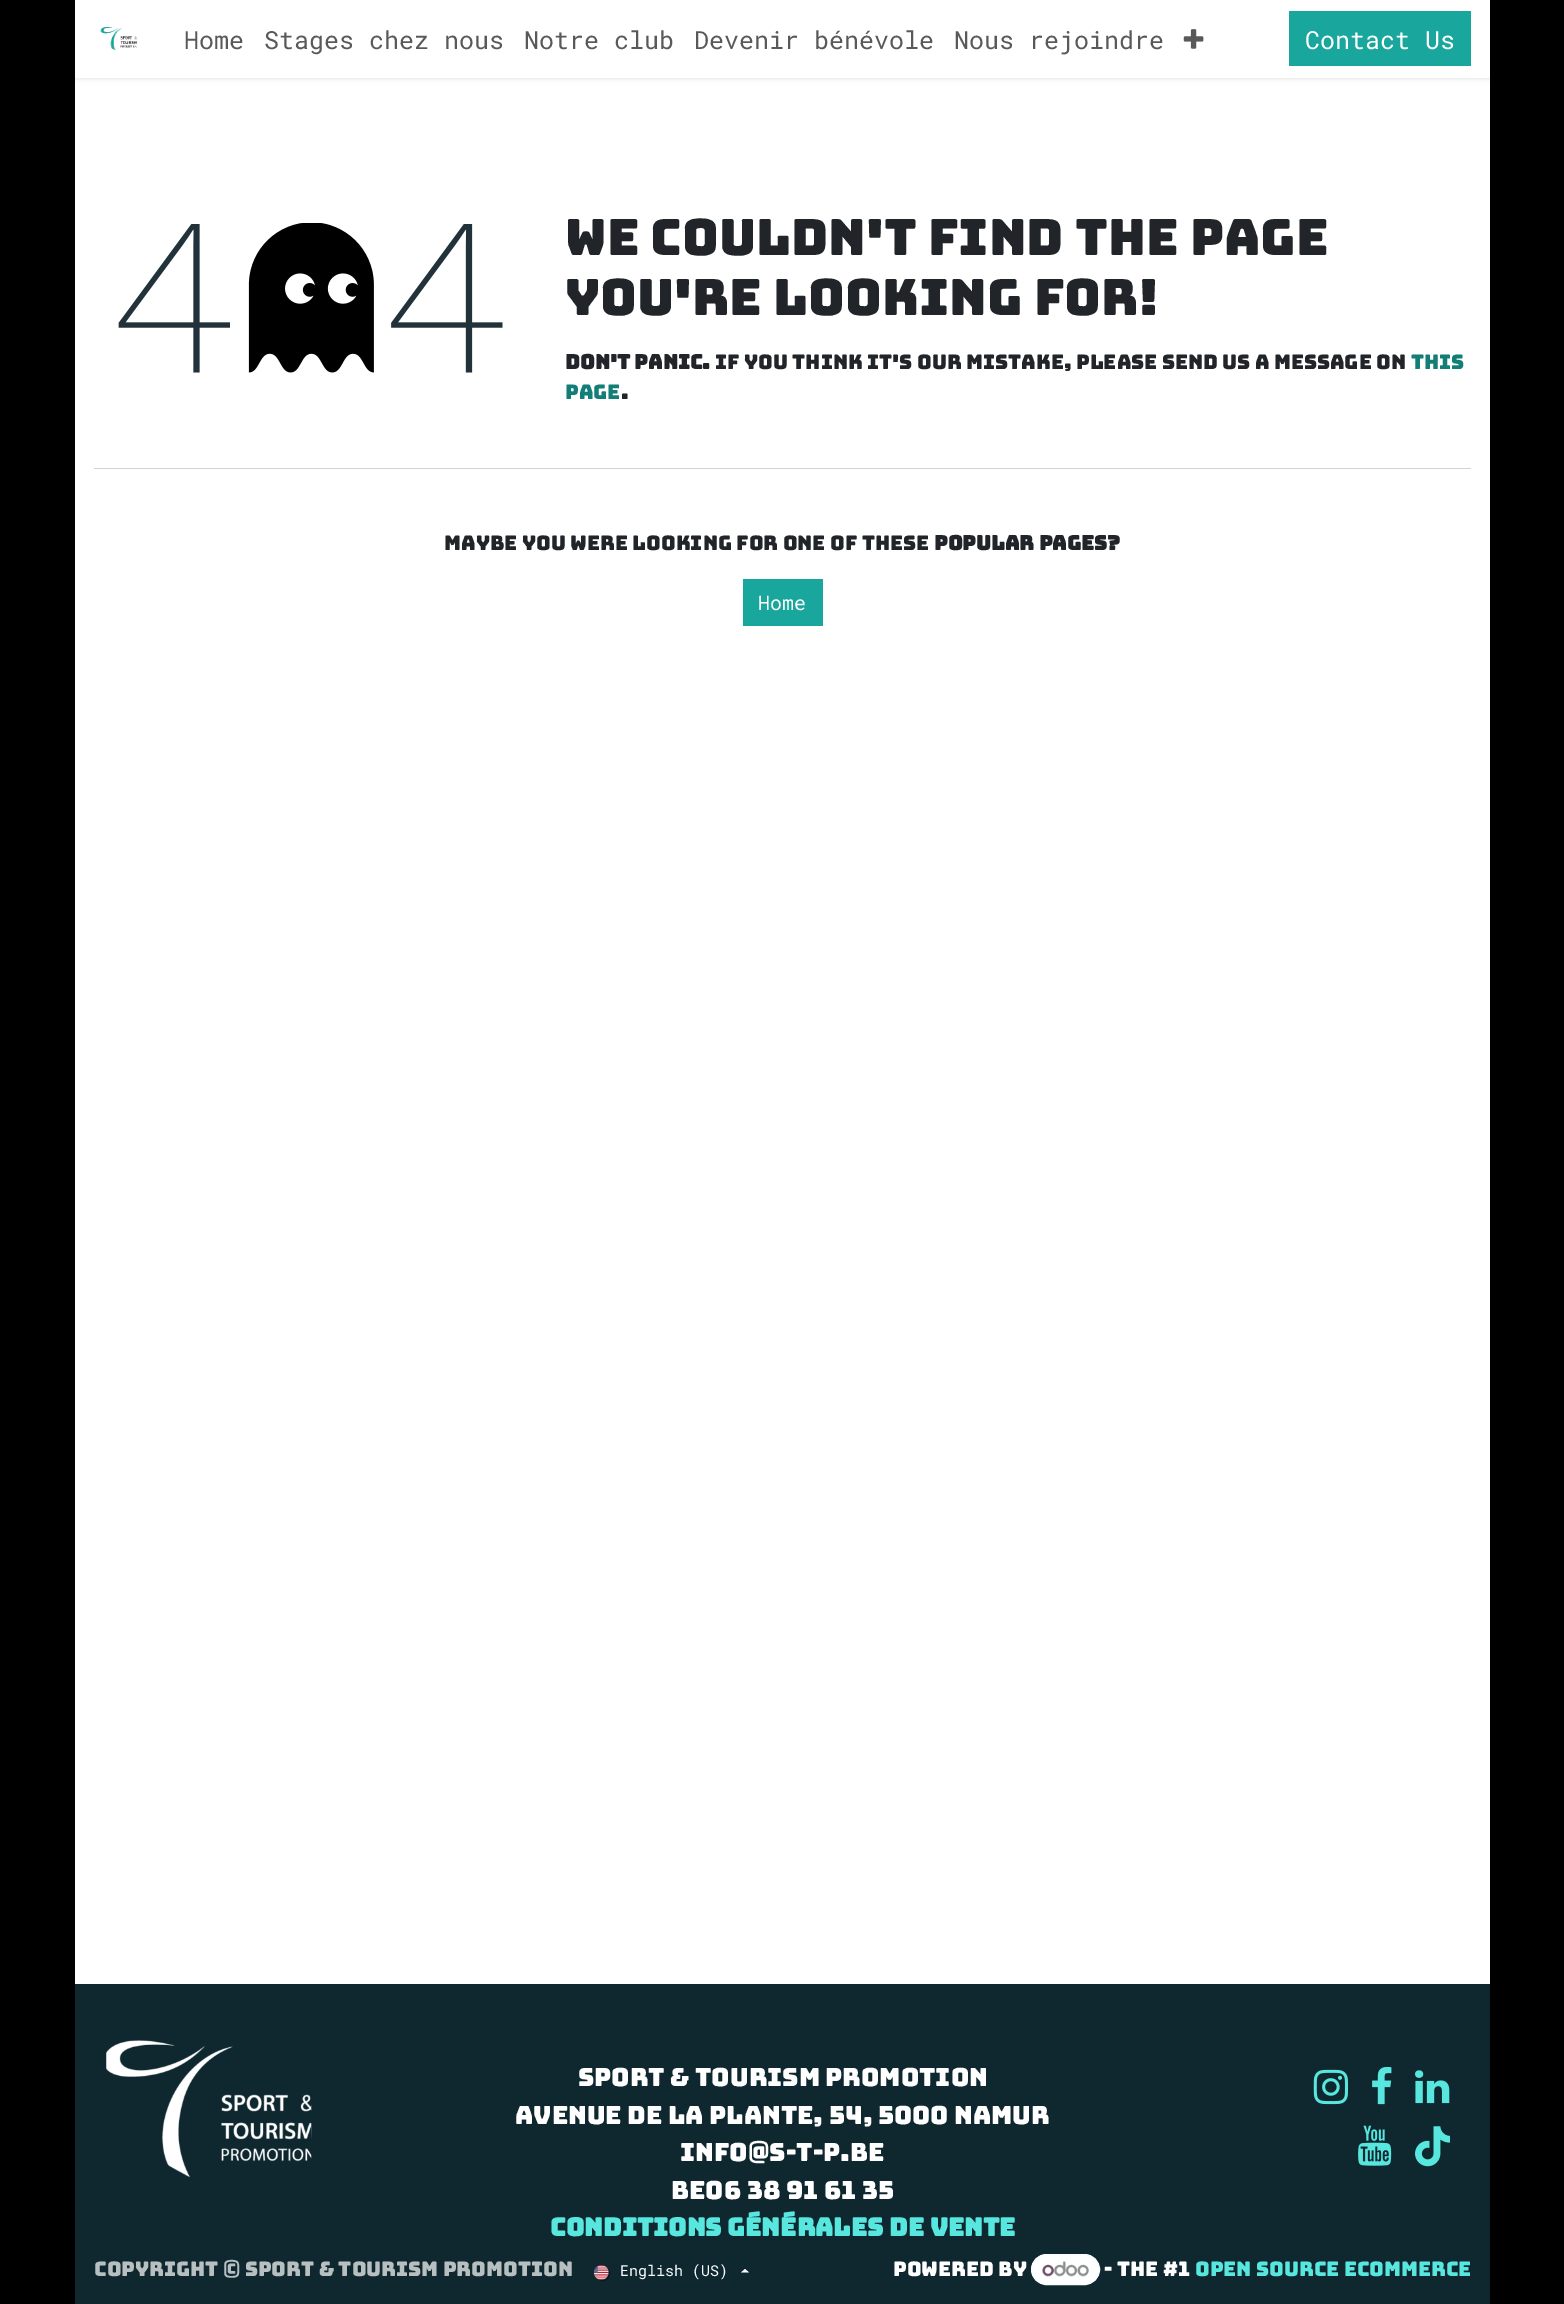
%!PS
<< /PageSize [1564 2304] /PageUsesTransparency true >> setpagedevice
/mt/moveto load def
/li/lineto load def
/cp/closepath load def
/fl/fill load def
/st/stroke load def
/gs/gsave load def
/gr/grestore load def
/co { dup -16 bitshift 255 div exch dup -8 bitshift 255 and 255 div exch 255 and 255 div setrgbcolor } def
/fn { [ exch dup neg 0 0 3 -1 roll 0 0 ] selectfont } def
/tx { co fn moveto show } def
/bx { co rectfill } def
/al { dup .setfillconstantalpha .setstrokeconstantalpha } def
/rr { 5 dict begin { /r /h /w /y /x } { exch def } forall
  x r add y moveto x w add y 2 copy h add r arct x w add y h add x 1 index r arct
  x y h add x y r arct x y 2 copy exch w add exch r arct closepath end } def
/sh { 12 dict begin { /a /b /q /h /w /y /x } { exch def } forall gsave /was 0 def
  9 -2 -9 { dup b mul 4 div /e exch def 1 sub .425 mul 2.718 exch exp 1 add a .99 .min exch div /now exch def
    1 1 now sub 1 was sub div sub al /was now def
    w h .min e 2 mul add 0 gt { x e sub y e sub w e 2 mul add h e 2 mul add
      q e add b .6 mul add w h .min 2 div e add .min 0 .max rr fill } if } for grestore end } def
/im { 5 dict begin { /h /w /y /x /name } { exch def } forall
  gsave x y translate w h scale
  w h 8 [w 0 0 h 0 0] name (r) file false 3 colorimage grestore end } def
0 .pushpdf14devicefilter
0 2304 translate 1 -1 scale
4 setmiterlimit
0 0 1564 2304 16#000000 bx
75 78 1415 1906 16#FFFFFF bx
16#000000 co
75 1 1415 78 0 2 .1 sh
75 0 1415 78 16#FFFFFF bx
(media/1.raw) 100 27 38 24 im
(media/2.raw) 1183 29 21 20 im
1289 11 182 55 16#18A69D bx
(media/3.raw) 118 223 385 150 im
94 468 1377 1 16#CED4DA bx
743 579 80 47 16#18A69D bx
75 1984 1415 320 16#0F2830 bx
(media/4.raw) 106 2040 206 138 im
(media/5.raw) 1313 2069 36 36 im
(media/6.raw) 1372 2067 20 38 im
(media/7.raw) 1415 2070 35 34 im
(media/8.raw) 1358 2125 34 41 im
(media/9.raw) 1415 2126 35 41 im
16#000000 co
595 2266 15 15 7.5 .5 .43 sh
(media/10.raw) 593 2265 16 15 im
16#F8FBFF co
749 2272.5 mt 741 2272.5 li 745 2269 li cp fl
16#FEFFFF co
1031.5 2254.5 68 30 15 rr gs fl gr
16#F8FBFF co
st
(media/11.raw) 1042 2261 47 16 im
(Home) 184 49 /RobotoMono-Regular 25 16#595959 tx
(Stages chez nous) 264 49 /RobotoMono-Regular 25 16#595959 tx
(Notre club) 524 49 /RobotoMono-Regular 25 16#595959 tx
(Devenir bénévole) 694 49 /RobotoMono-Regular 25 16#595959 tx
(Nous rejoindre) 954 49 /RobotoMono-Regular 25 16#595959 tx
(Contact Us) 1305 49 /RobotoMono-Regular 25 16#FFFFFF tx
(We couldn't find the page) 565 255 /Bungee-Regular 50 16#212529 tx
(you're looking for!) 565 315 /Bungee-Regular 50 16#212529 tx
(Don't panic.) 565 369 /Bungee-Bold 20 16#212529 tx
(If you think it's our mistake, please send us a message on) 715 369 /Bungee-Regular 20 16#212529 tx
(this) 1411 369 /Bungee-Regular 20 16#127E77 tx
(page) 565 399 /Bungee-Regular 20 16#127E77 tx
(.) 621 399 /Bungee-Regular 20 16#212529 tx
(Maybe you were looking for one of these) 444 550 /Bungee-Regular 20 16#212529 tx
(popular pages?) 934 550 /Bungee-Bold 20 16#212529 tx
(Home) 758 610 /RobotoMono-Regular 20 16#FFFFFF tx
(Sport & Tourism Promotion) 578 2086 /Bungee-Regular 25 16#FFFFFF tx
(Avenue de la Plante, 54, 5000 Namur) 515 2124 /Bungee-Regular 25 16#FFFFFF tx
(info@s-t-p.be) 680 2161 /Bungee-Regular 25 16#FFFFFF tx
(BE06 38 91 61 35) 671 2199 /Bungee-Regular 25 16#FFFFFF tx
(Conditions générales de vente) 550 2236 /Bungee-Bold 25 16#57E7DE tx
(Copyright © Sport & Tourism Promotion) 94 2276 /Bungee-Regular 20 16#B7BFC1 tx
(English \(US\)) 620 2276 /RobotoMono-Regular 15 16#F8FBFF tx
(Powered by) 893 2276 /Bungee-Regular 20 16#FFFFFF tx
(- The #1) 1104 2276 /Bungee-Regular 20 16#FFFFFF tx
(Open Source eCommerce) 1195 2276 /Bungee-Regular 20 16#57E7DE tx
.poppdf14devicefilter showpage
